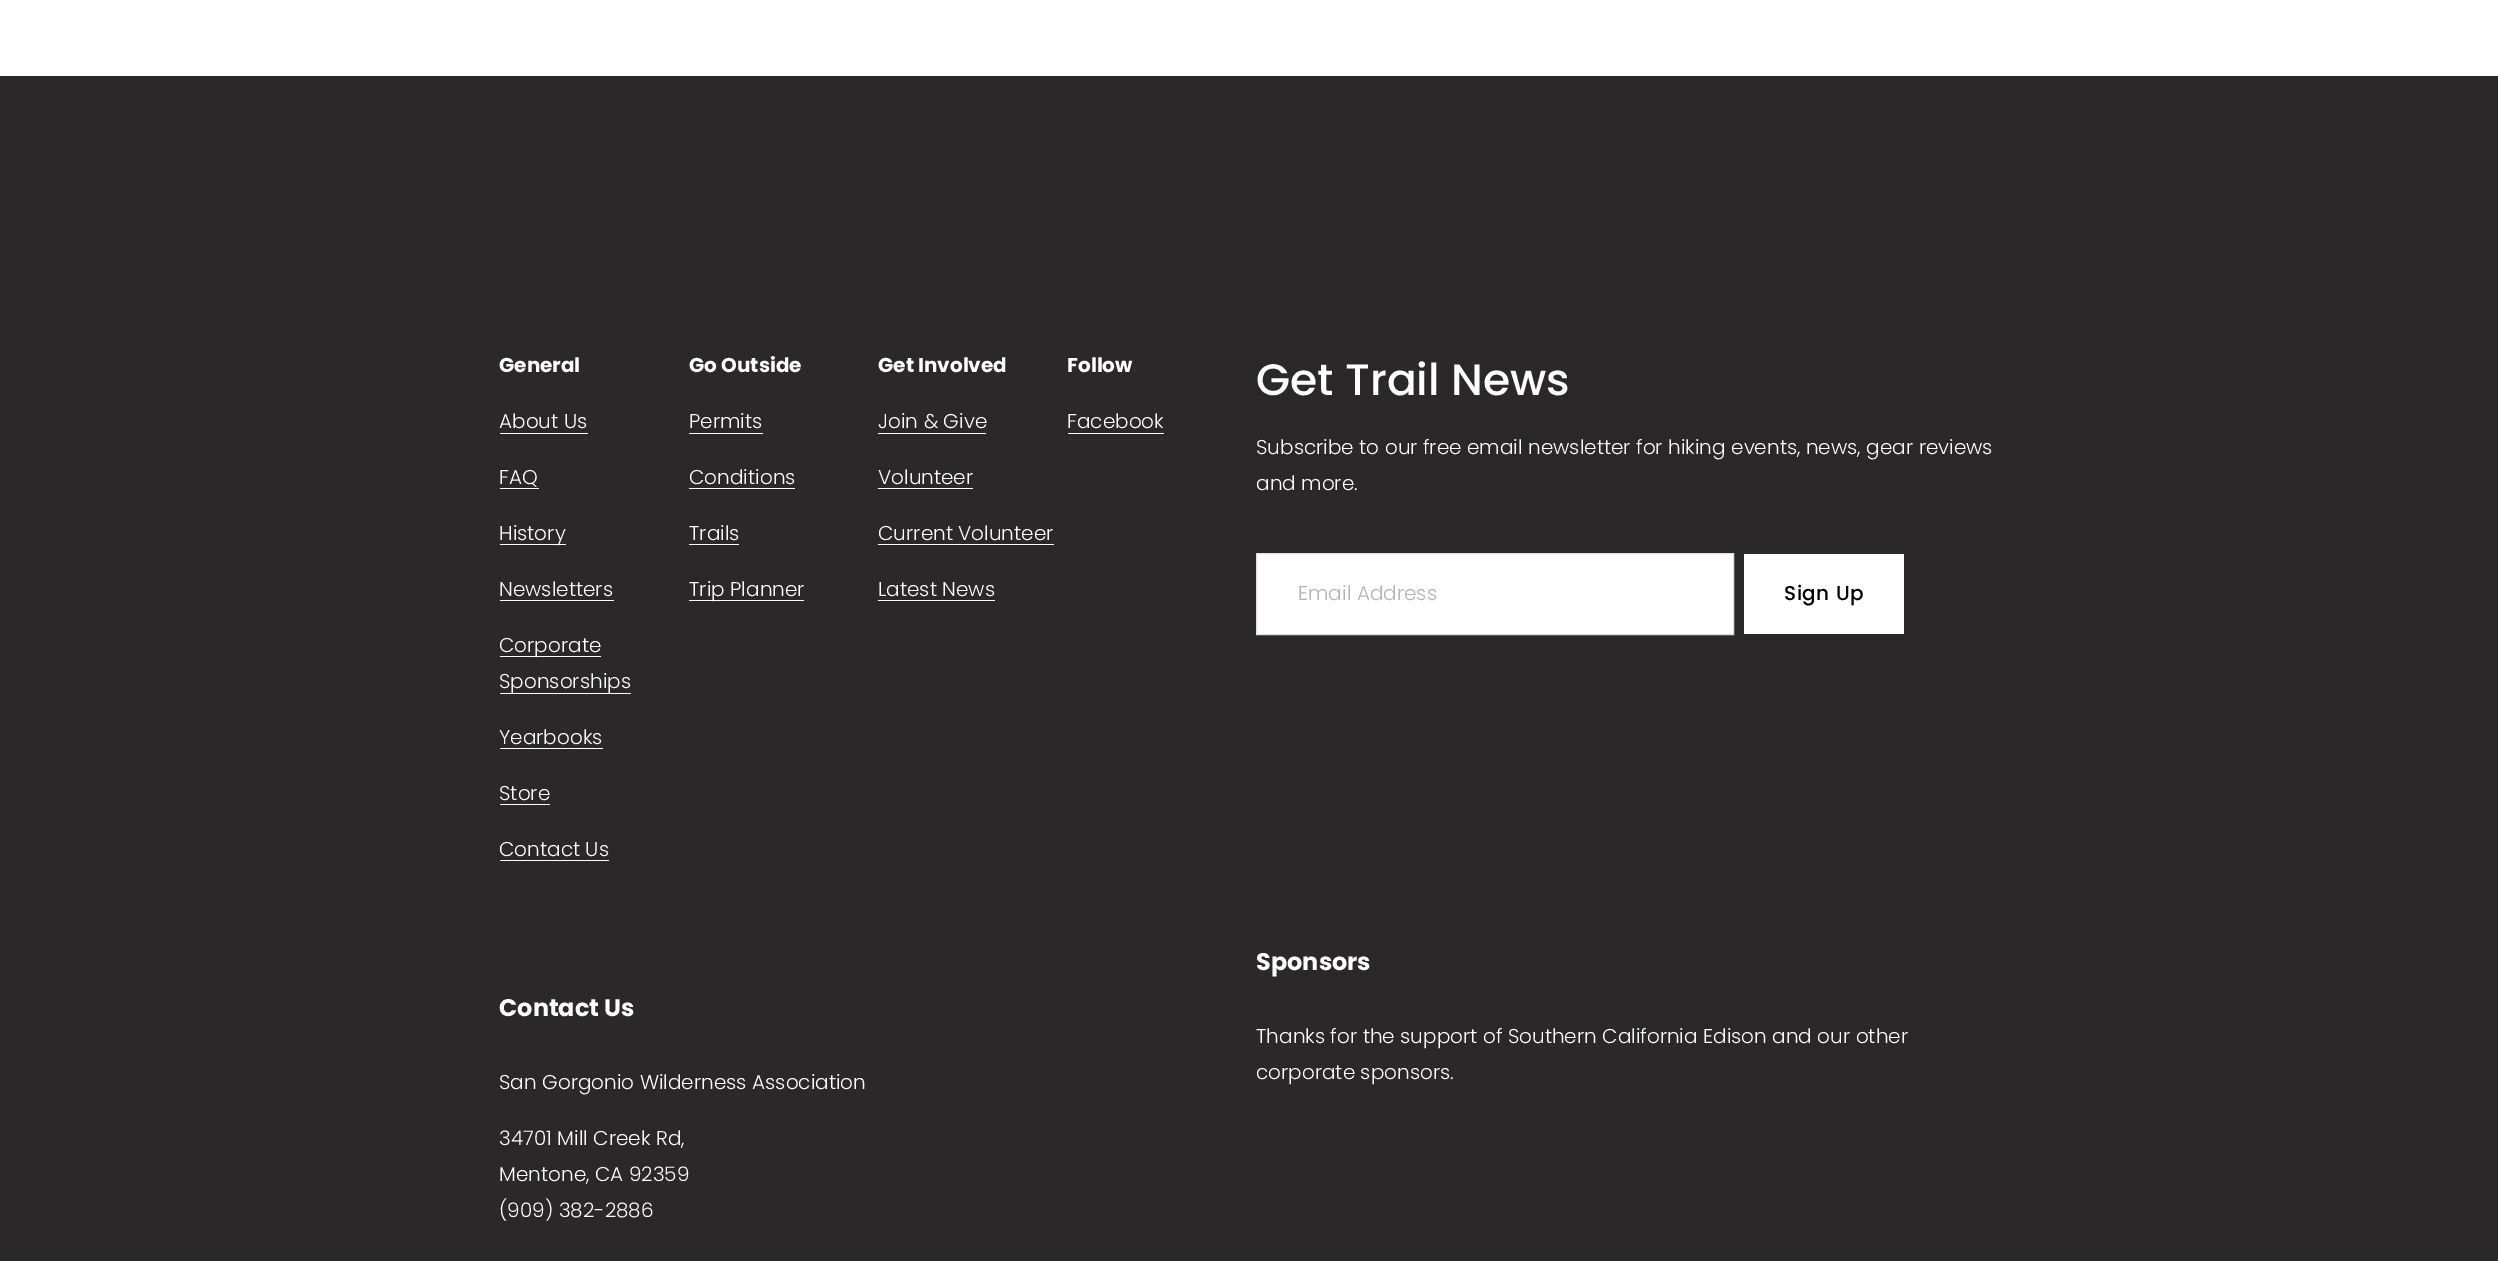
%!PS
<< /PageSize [2498 1261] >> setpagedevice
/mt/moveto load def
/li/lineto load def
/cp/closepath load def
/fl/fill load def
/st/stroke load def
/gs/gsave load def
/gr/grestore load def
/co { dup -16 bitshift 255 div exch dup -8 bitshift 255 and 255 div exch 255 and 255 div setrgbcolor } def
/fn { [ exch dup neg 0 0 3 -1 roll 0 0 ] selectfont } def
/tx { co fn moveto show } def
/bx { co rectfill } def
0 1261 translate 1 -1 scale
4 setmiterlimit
0 0 2498 1261 16#FFFFFF bx
0 76 2498 1185 16#2A2829 bx
500 433 88 1 16#FFFFFF bx
500 488 39 1 16#FFFFFF bx
500 544 66 1 16#FFFFFF bx
500 600 114 1 16#FFFFFF bx
500 656 101 1 16#FFFFFF bx
500 693 131 1 16#FFFFFF bx
500 748 103 1 16#FFFFFF bx
500 804 50 1 16#FFFFFF bx
500 860 109 1 16#FFFFFF bx
689 433 74 1 16#FFFFFF bx
689 488 106 1 16#FFFFFF bx
689 544 50 1 16#FFFFFF bx
689 600 115 1 16#FFFFFF bx
878 433 108 1 16#FFFFFF bx
878 488 95 1 16#FFFFFF bx
878 544 176 1 16#FFFFFF bx
878 600 117 1 16#FFFFFF bx
1068 433 96 1 16#FFFFFF bx
1256.5 553.5 mt 1733.5 553.5 li 1733.5 634.5 li 1256.5 634.5 li cp gs fl gr
16#E0E0E0 co
st
1744 554 160 80 16#FFFFFF bx
(General) 499 372 /Poppins-Bold 20 16#FFFFFF tx
(About Us) 499 428 /Poppins-Light 20 16#FFFFFF tx
(FAQ) 499 484 /Poppins-Light 20 16#FFFFFF tx
(History) 499 540 /Poppins-Light 20 16#FFFFFF tx
(Newsletters) 499 596 /Poppins-Light 20 16#FFFFFF tx
(Corporate) 499 652 /Poppins-Light 20 16#FFFFFF tx
(Sponsorships) 499 688 /Poppins-Light 20 16#FFFFFF tx
(Yearbooks) 499 744 /Poppins-Light 20 16#FFFFFF tx
(Store) 499 800 /Poppins-Light 20 16#FFFFFF tx
(Contact Us) 499 856 /Poppins-Light 20 16#FFFFFF tx
(Go Outside) 689 372 /Poppins-Bold 20 16#FFFFFF tx
(Permits) 689 428 /Poppins-Light 20 16#FFFFFF tx
(Conditions) 689 484 /Poppins-Light 20 16#FFFFFF tx
(Trails) 689 540 /Poppins-Light 20 16#FFFFFF tx
(Trip Planner) 689 596 /Poppins-Light 20 16#FFFFFF tx
(Get Involved) 878 372 /Poppins-Bold 20 16#FFFFFF tx
(Join & Give) 878 428 /Poppins-Light 20 16#FFFFFF tx
(Volunteer) 878 484 /Poppins-Light 20 16#FFFFFF tx
(Current Volunteer) 878 540 /Poppins-Light 20 16#FFFFFF tx
(Latest News) 878 596 /Poppins-Light 20 16#FFFFFF tx
(Follow) 1067 372 /Poppins-Bold 20 16#FFFFFF tx
(Facebook) 1067 428 /Poppins-Light 20 16#FFFFFF tx
(Get Trail News) 1256 395 /Poppins-Medium 44 16#FFFFFF tx
(Subscribe to our free email newsletter for hiking events, news, gear reviews) 1256 454 /Poppins-Light 20 16#FFFFFF tx
(and more.) 1256 490 /Poppins-Light 20 16#FFFFFF tx
(Email Address) 1298 600 /Poppins-Light 20 16#B3B3B3 tx
/Poppins-Medium 20 fn
16#000000 co
1784 600 mt .5 0 (Sign Up) ashow
(Contact Us) 499 1016 /Poppins-Bold 24 16#FFFFFF tx
(San Gorgonio Wilderness Association) 499 1089 /Poppins-Light 20 16#FFFFFF tx
(34701 Mill Creek Rd,) 499 1145 /Poppins-Light 20 16#FFFFFF tx
(Mentone, CA 92359) 499 1181 /Poppins-Light 20 16#FFFFFF tx
(\(909\) 382-2886) 499 1217 /Poppins-Light 20 16#FFFFFF tx
(Sponsors) 1256 970 /Poppins-Bold 24 16#FFFFFF tx
(Thanks for the support of Southern California Edison and our other) 1256 1043 /Poppins-Light 20 16#FFFFFF tx
(corporate sponsors.) 1256 1079 /Poppins-Light 20 16#FFFFFF tx
showpage
